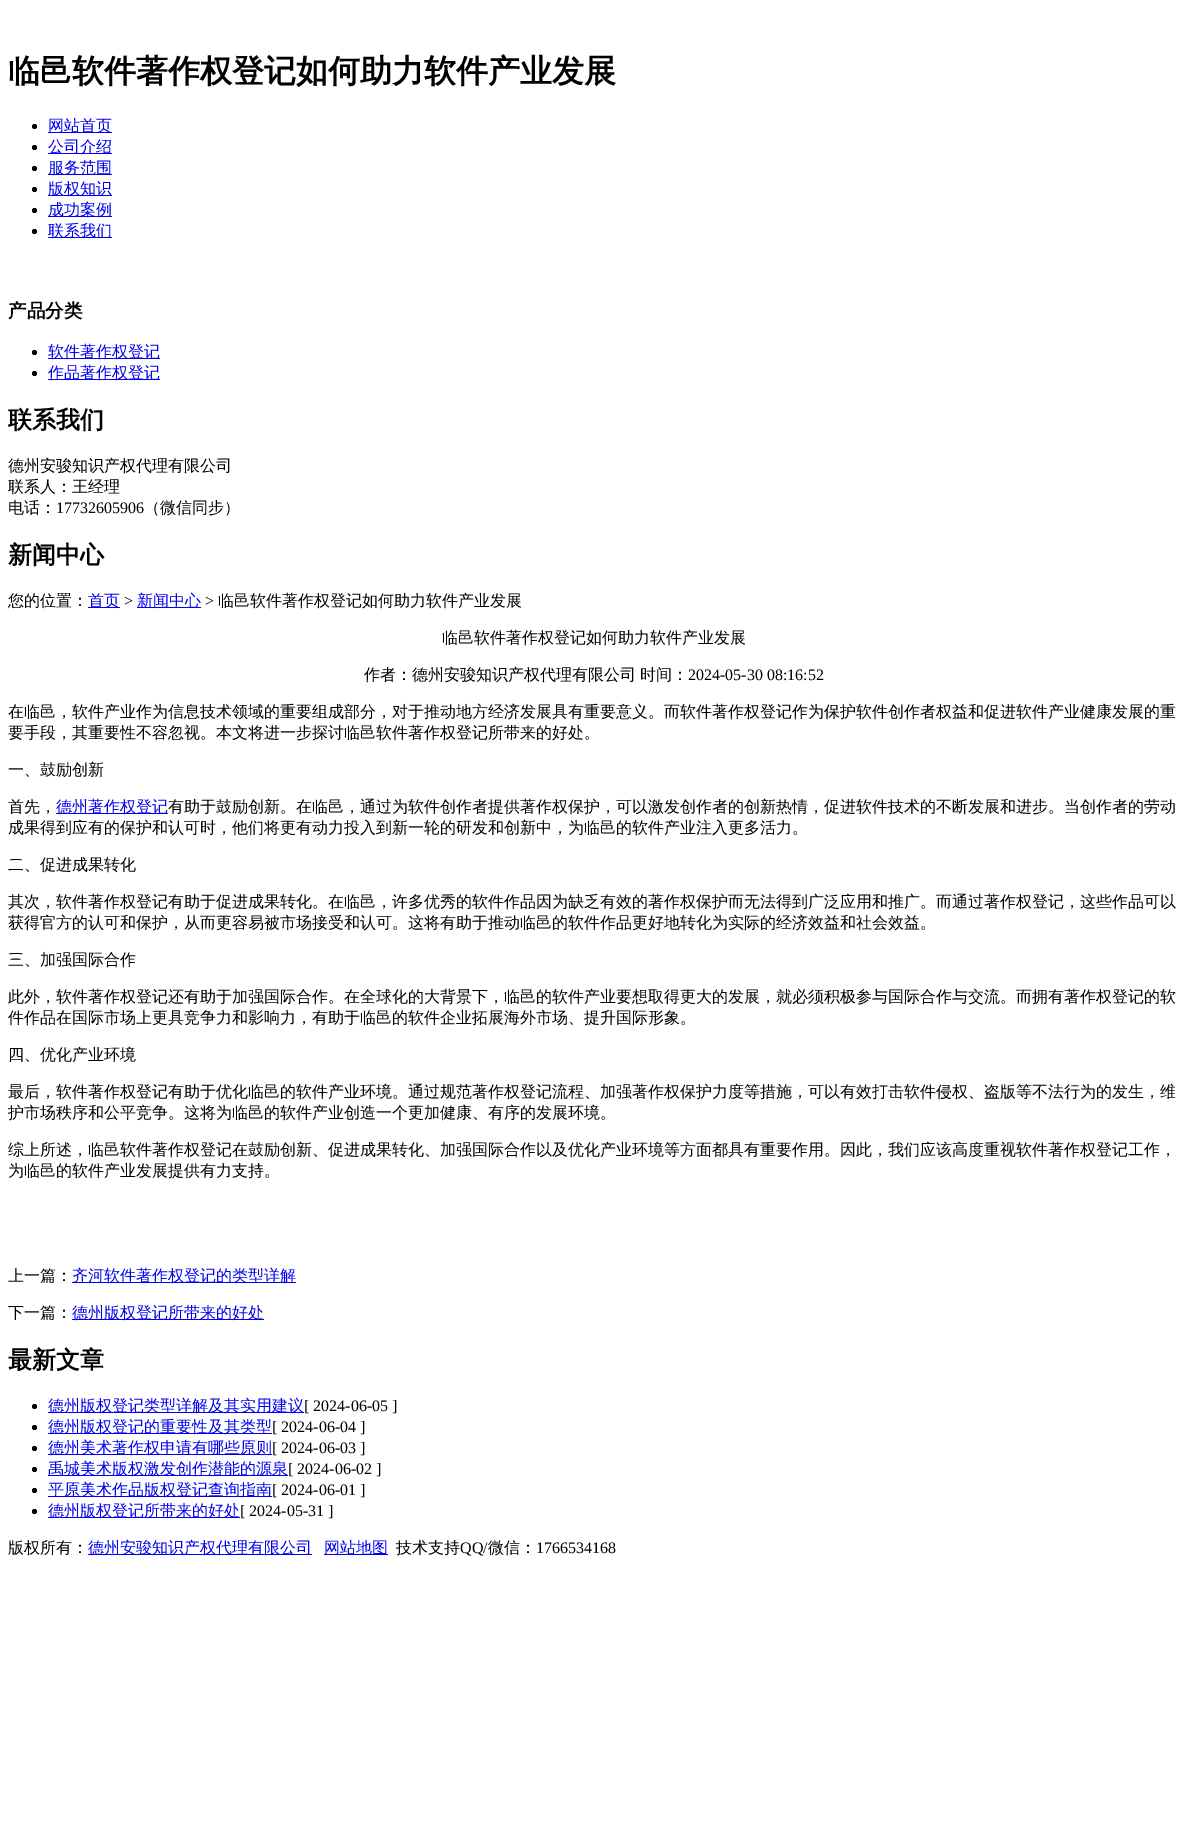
%!PS
<< /PageSize [1187 1833] >> setpagedevice
/fl/fill load def
/co { dup -16 bitshift 255 div exch dup -8 bitshift 255 and 255 div exch 255 and 255 div setrgbcolor } def
/fn { [ exch dup neg 0 0 3 -1 roll 0 0 ] selectfont } def
/tx { co fn moveto show } def
/bx { co rectfill } def
/ci { newpath 0 360 arc closepath } def
0 1833 translate 1 -1 scale
4 setmiterlimit
0 0 1187 1833 16#FFFFFF bx
16#000000 co
34.5 126.5 2.5 ci fl
48 132 64 1 16#0000EE bx
16#000000 co
34.5 147.5 2.5 ci fl
48 153 64 1 16#0000EE bx
16#000000 co
34.5 168.5 2.5 ci fl
48 174 64 1 16#0000EE bx
16#000000 co
34.5 189.5 2.5 ci fl
48 195 64 1 16#0000EE bx
16#000000 co
34.5 210.5 2.5 ci fl
48 216 64 1 16#0000EE bx
16#000000 co
34.5 231.5 2.5 ci fl
48 237 64 1 16#0000EE bx
16#000000 co
34.5 352.5 2.5 ci fl
48 358 112 1 16#0000EE bx
16#000000 co
34.5 373.5 2.5 ci fl
48 379 112 1 16#0000EE bx
88 607 32 1 16#0000EE bx
137 607 64 1 16#0000EE bx
56 813 112 1 16#0000EE bx
72 1282 224 1 16#0000EE bx
72 1319 192 1 16#0000EE bx
16#000000 co
34.5 1406.5 2.5 ci fl
48 1412 256 1 16#0000EE bx
16#000000 co
34.5 1427.5 2.5 ci fl
48 1433 224 1 16#0000EE bx
16#000000 co
34.5 1448.5 2.5 ci fl
48 1454 224 1 16#0000EE bx
16#000000 co
34.5 1469.5 2.5 ci fl
48 1475 240 1 16#0000EE bx
16#000000 co
34.5 1490.5 2.5 ci fl
48 1496 224 1 16#0000EE bx
16#000000 co
34.5 1511.5 2.5 ci fl
48 1517 192 1 16#0000EE bx
88 1554 224 1 16#0000EE bx
324 1554 64 1 16#0000EE bx
(临邑软件著作权登记如何助力软件产业发展) 8 82 /WenQuanYiZenHei-Bold 32 16#000000 tx
(网站首页) 48 131 /WenQuanYiZenHei-Medium 16 16#0000EE tx
(公司介绍) 48 152 /WenQuanYiZenHei-Medium 16 16#0000EE tx
(服务范围) 48 173 /WenQuanYiZenHei-Medium 16 16#0000EE tx
(版权知识) 48 194 /WenQuanYiZenHei-Medium 16 16#0000EE tx
(成功案例) 48 215 /WenQuanYiZenHei-Medium 16 16#0000EE tx
(联系我们) 48 236 /WenQuanYiZenHei-Medium 16 16#0000EE tx
(产品分类) 8 317 /WenQuanYiZenHei-Bold 18.5 16#000000 tx
(软件著作权登记) 48 357 /WenQuanYiZenHei-Medium 16 16#0000EE tx
(作品著作权登记) 48 378 /WenQuanYiZenHei-Medium 16 16#0000EE tx
(联系我们) 8 428 /WenQuanYiZenHei-Bold 24 16#000000 tx
(德州安骏知识产权代理有限公司) 8 471 /WenQuanYiZenHei-Medium 16 16#000000 tx
(联系人：王经理) 8 492 /WenQuanYiZenHei-Medium 16 16#000000 tx
(电话：) 8 513 /WenQuanYiZenHei-Medium 16 16#000000 tx
(17732605906) 56 513 /LiberationSerif-Regular 16 16#000000 tx
(（微信同步）) 144 513 /WenQuanYiZenHei-Medium 16 16#000000 tx
(新闻中心) 8 563 /WenQuanYiZenHei-Bold 24 16#000000 tx
(您的位置：) 8 606 /WenQuanYiZenHei-Medium 16 16#000000 tx
(首页) 88 606 /WenQuanYiZenHei-Medium 16 16#0000EE tx
(>) 124 606 /LiberationSerif-Regular 16 16#000000 tx
(新闻中心) 137 606 /WenQuanYiZenHei-Medium 16 16#0000EE tx
(>) 205 606 /LiberationSerif-Regular 16 16#000000 tx
(临邑软件著作权登记如何助力软件产业发展) 218 606 /WenQuanYiZenHei-Medium 16 16#000000 tx
(临邑软件著作权登记如何助力软件产业发展) 442 643 /WenQuanYiZenHei-Medium 16 16#000000 tx
(作者：德州安骏知识产权代理有限公司) 364 680 /WenQuanYiZenHei-Medium 16 16#000000 tx
(时间：) 640 680 /WenQuanYiZenHei-Medium 16 16#000000 tx
(2024-05-30 08:16:52) 688 680 /LiberationSerif-Regular 16 16#000000 tx
(在临邑，软件产业作为信息技术领域的重要组成部分，对于推动地方经济发展具有重要意义。而软件著作权登记作为保护软件创作者权益和促进软件产业健康发展的重) 8 717 /WenQuanYiZenHei-Medium 16 16#000000 tx
(要手段，其重要性不容忽视。本文将进一步探讨临邑软件著作权登记所带来的好处。) 8 738 /WenQuanYiZenHei-Medium 16 16#000000 tx
(一、鼓励创新) 8 775 /WenQuanYiZenHei-Medium 16 16#000000 tx
(首先，) 8 812 /WenQuanYiZenHei-Medium 16 16#000000 tx
(德州著作权登记) 56 812 /WenQuanYiZenHei-Medium 16 16#0000EE tx
(有助于鼓励创新。在临邑，通过为软件创作者提供著作权保护，可以激发创作者的创新热情，促进软件技术的不断发展和进步。当创作者的劳动) 168 812 /WenQuanYiZenHei-Medium 16 16#000000 tx
(成果得到应有的保护和认可时，他们将更有动力投入到新一轮的研发和创新中，为临邑的软件产业注入更多活力。) 8 833 /WenQuanYiZenHei-Medium 16 16#000000 tx
(二、促进成果转化) 8 870 /WenQuanYiZenHei-Medium 16 16#000000 tx
(其次，软件著作权登记有助于促进成果转化。在临邑，许多优秀的软件作品因为缺乏有效的著作权保护而无法得到广泛应用和推广。而通过著作权登记，这些作品可以) 8 907 /WenQuanYiZenHei-Medium 16 16#000000 tx
(获得官方的认可和保护，从而更容易被市场接受和认可。这将有助于推动临邑的软件作品更好地转化为实际的经济效益和社会效益。) 8 928 /WenQuanYiZenHei-Medium 16 16#000000 tx
(三、加强国际合作) 8 965 /WenQuanYiZenHei-Medium 16 16#000000 tx
(此外，软件著作权登记还有助于加强国际合作。在全球化的大背景下，临邑的软件产业要想取得更大的发展，就必须积极参与国际合作与交流。而拥有著作权登记的软) 8 1002 /WenQuanYiZenHei-Medium 16 16#000000 tx
(件作品在国际市场上更具竞争力和影响力，有助于临邑的软件企业拓展海外市场、提升国际形象。) 8 1023 /WenQuanYiZenHei-Medium 16 16#000000 tx
(四、优化产业环境) 8 1060 /WenQuanYiZenHei-Medium 16 16#000000 tx
(最后，软件著作权登记有助于优化临邑的软件产业环境。通过规范著作权登记流程、加强著作权保护力度等措施，可以有效打击软件侵权、盗版等不法行为的发生，维) 8 1097 /WenQuanYiZenHei-Medium 16 16#000000 tx
(护市场秩序和公平竞争。这将为临邑的软件产业创造一个更加健康、有序的发展环境。) 8 1118 /WenQuanYiZenHei-Medium 16 16#000000 tx
(综上所述，临邑软件著作权登记在鼓励创新、促进成果转化、加强国际合作以及优化产业环境等方面都具有重要作用。因此，我们应该高度重视软件著作权登记工作，) 8 1155 /WenQuanYiZenHei-Medium 16 16#000000 tx
(为临邑的软件产业发展提供有力支持。) 8 1176 /WenQuanYiZenHei-Medium 16 16#000000 tx
(上一篇：) 8 1281 /WenQuanYiZenHei-Medium 16 16#000000 tx
(齐河软件著作权登记的类型详解) 72 1281 /WenQuanYiZenHei-Medium 16 16#0000EE tx
(下一篇：) 8 1318 /WenQuanYiZenHei-Medium 16 16#000000 tx
(德州版权登记所带来的好处) 72 1318 /WenQuanYiZenHei-Medium 16 16#0000EE tx
(最新文章) 8 1368 /WenQuanYiZenHei-Bold 24 16#000000 tx
(德州版权登记类型详解及其实用建议) 48 1411 /WenQuanYiZenHei-Medium 16 16#0000EE tx
([ 2024-06-05 ]) 304 1411 /LiberationSerif-Regular 16 16#000000 tx
(德州版权登记的重要性及其类型) 48 1432 /WenQuanYiZenHei-Medium 16 16#0000EE tx
([ 2024-06-04 ]) 272 1432 /LiberationSerif-Regular 16 16#000000 tx
(德州美术著作权申请有哪些原则) 48 1453 /WenQuanYiZenHei-Medium 16 16#0000EE tx
([ 2024-06-03 ]) 272 1453 /LiberationSerif-Regular 16 16#000000 tx
(禹城美术版权激发创作潜能的源泉) 48 1474 /WenQuanYiZenHei-Medium 16 16#0000EE tx
([ 2024-06-02 ]) 288 1474 /LiberationSerif-Regular 16 16#000000 tx
(平原美术作品版权登记查询指南) 48 1495 /WenQuanYiZenHei-Medium 16 16#0000EE tx
([ 2024-06-01 ]) 272 1495 /LiberationSerif-Regular 16 16#000000 tx
(德州版权登记所带来的好处) 48 1516 /WenQuanYiZenHei-Medium 16 16#0000EE tx
([ 2024-05-31 ]) 240 1516 /LiberationSerif-Regular 16 16#000000 tx
(版权所有：) 8 1553 /WenQuanYiZenHei-Medium 16 16#000000 tx
(德州安骏知识产权代理有限公司) 88 1553 /WenQuanYiZenHei-Medium 16 16#0000EE tx
(网站地图) 324 1553 /WenQuanYiZenHei-Medium 16 16#0000EE tx
(技术支持) 396 1553 /WenQuanYiZenHei-Medium 16 16#000000 tx
(QQ/) 460 1553 /LiberationSerif-Regular 16 16#000000 tx
(微信：) 488 1553 /WenQuanYiZenHei-Medium 16 16#000000 tx
(1766534168) 536 1553 /LiberationSerif-Regular 16 16#000000 tx
showpage
